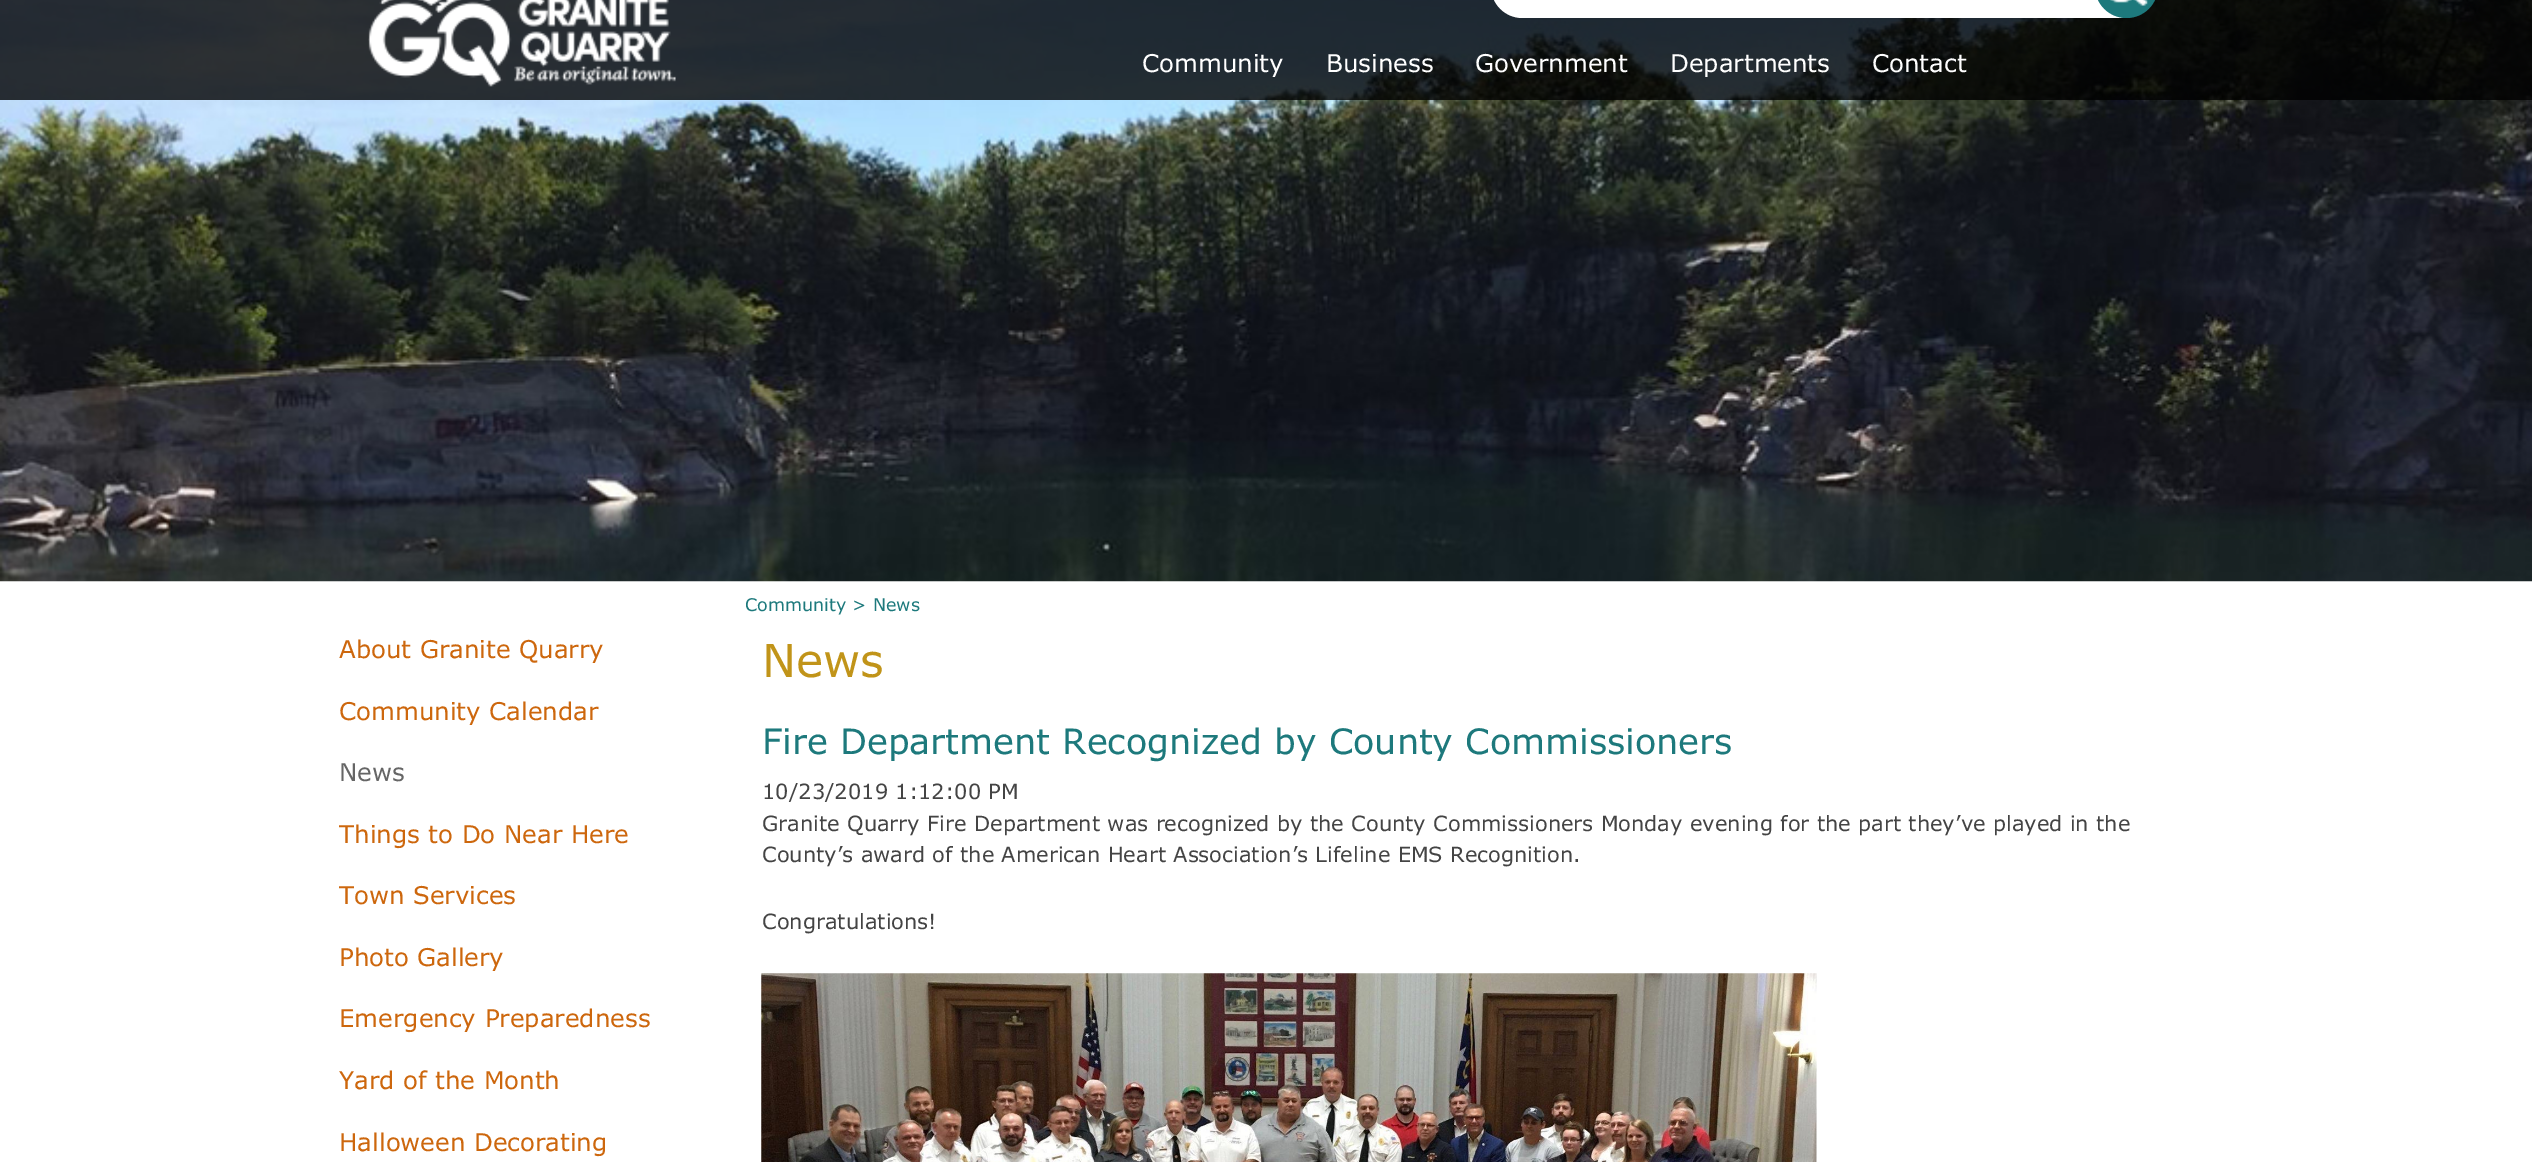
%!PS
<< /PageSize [2532 1162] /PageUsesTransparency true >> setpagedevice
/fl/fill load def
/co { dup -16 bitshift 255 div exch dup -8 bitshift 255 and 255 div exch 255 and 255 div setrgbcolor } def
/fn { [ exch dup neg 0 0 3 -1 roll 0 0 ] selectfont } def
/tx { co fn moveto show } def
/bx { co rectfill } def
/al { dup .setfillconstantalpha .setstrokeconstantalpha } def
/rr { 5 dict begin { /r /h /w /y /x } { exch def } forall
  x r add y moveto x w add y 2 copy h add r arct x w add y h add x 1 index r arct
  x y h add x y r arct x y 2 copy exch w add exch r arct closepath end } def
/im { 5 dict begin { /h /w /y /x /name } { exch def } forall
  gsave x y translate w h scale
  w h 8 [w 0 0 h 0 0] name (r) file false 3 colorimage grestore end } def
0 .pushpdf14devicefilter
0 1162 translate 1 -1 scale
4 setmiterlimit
0 0 2532 1162 16#FFFFFF bx
(media/1.raw) 0 0 2532 582 im
0.8 al
0 0 2532 100 16#000000 bx
1 al
(media/2.raw) 368 0 308 87 im
16#FFFFFF co
1491 -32 658 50 31.5 rr fl
16#1D797C co
2095 -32 63 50 31.5 rr fl
(media/3.raw) 2110 0 38 6 im
(media/4.raw) 761 973 1056 189 im
(Community) 1142 72 /Verdana-Regular 24.5 16#FFFFFF tx
(Business) 1326 72 /Verdana-Regular 24.5 16#FFFFFF tx
(Government) 1475 72 /Verdana-Regular 24.5 16#FFFFFF tx
(Departments) 1670 72 /Verdana-Regular 24.5 16#FFFFFF tx
(Contact) 1872 72 /Verdana-Regular 24.5 16#FFFFFF tx
(About Granite Quarry) 339 658 /Verdana-Regular 24.5 16#CD670D tx
(Community Calendar) 339 720 /Verdana-Regular 24.5 16#CD670D tx
(News) 339 781 /Verdana-Regular 24.5 16#666666 tx
(Things to Do Near Here) 339 843 /Verdana-Regular 24.5 16#CD670D tx
(Town Services) 339 904 /Verdana-Regular 24.5 16#CD670D tx
(Photo Gallery) 339 966 /Verdana-Regular 24.5 16#CD670D tx
(Emergency Preparedness) 339 1027 /Verdana-Regular 24.5 16#CD670D tx
(Yard of the Month) 339 1089 /Verdana-Regular 24.5 16#CD670D tx
(Halloween Decorating) 339 1151 /Verdana-Regular 24.5 16#CD670D tx
(Community > News) 745 611 /Verdana-Regular 17.5 16#1D797C tx
(News) 762 677 /Verdana-Regular 45.5 16#C19419 tx
(Fire Department Recognized by County Commissioners) 762 754 /Verdana-Regular 35 16#1D797C tx
(10/23/2019 1:12:00 PM) 762 799 /Verdana-Regular 21 16#444444 tx
(Granite Quarry Fire Department was recognized by the County Commissioners Monday evening for the part they’ve played in the) 762 831 /Verdana-Regular 21 16#444444 tx
(County’s award of the American Heart Association’s Lifeline EMS Recognition.) 762 862 /Verdana-Regular 21 16#444444 tx
(Congratulations!) 762 929 /Verdana-Regular 21 16#444444 tx
.poppdf14devicefilter showpage
